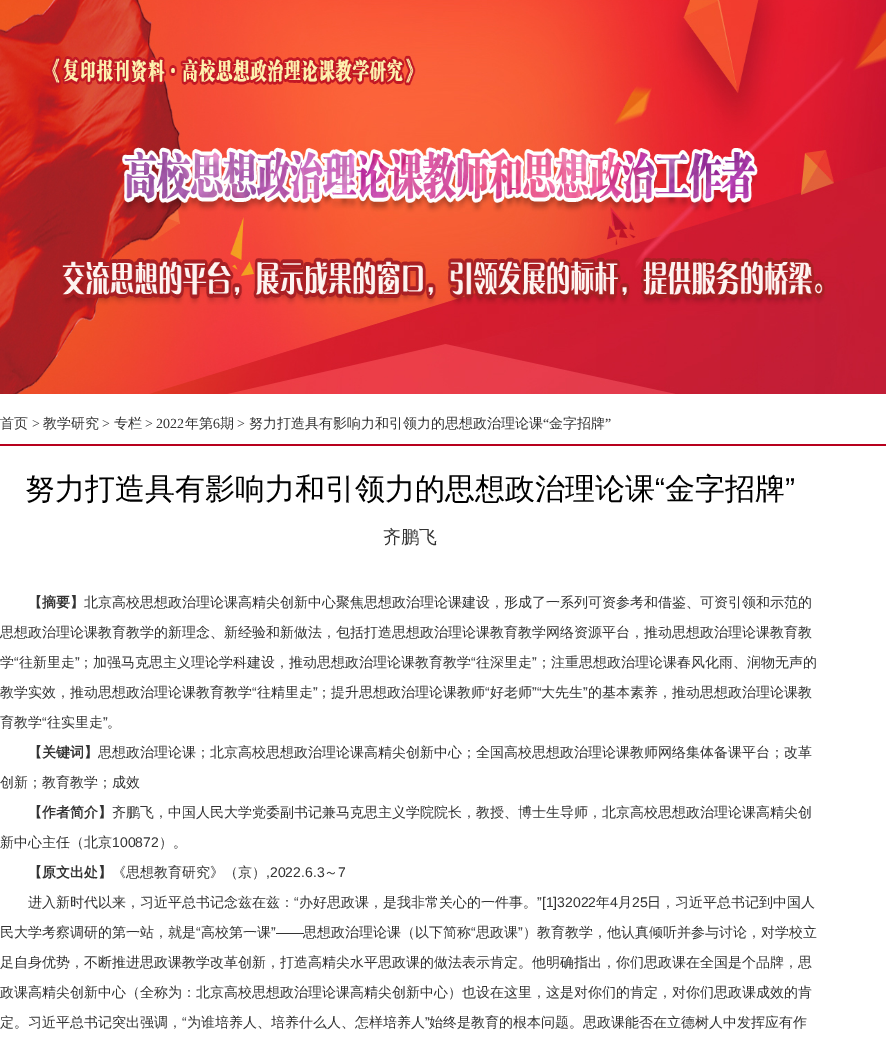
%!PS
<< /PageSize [886 1038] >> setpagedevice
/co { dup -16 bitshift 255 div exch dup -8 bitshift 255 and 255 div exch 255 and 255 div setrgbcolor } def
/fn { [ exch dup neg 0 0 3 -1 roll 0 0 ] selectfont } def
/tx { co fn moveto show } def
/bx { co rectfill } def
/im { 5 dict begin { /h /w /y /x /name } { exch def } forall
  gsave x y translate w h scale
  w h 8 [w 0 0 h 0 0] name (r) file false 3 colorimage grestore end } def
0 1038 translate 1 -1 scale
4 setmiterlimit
0 0 886 1038 16#FFFFFF bx
(media/1.raw) 0 0 886 394 im
0 444 886 2 16#B7001D bx
(首页) 0 428 /WenQuanYiZenHei-Medium 14 16#333333 tx
(>) 32 428 /LiberationSerif-Regular 14 16#333333 tx
(教学研究) 43 428 /WenQuanYiZenHei-Medium 14 16#333333 tx
(>) 102 428 /LiberationSerif-Regular 14 16#333333 tx
(专栏) 114 428 /WenQuanYiZenHei-Medium 14 16#333333 tx
(> 2022) 145 428 /LiberationSerif-Regular 14 16#333333 tx
(年第) 185 428 /WenQuanYiZenHei-Medium 14 16#333333 tx
(6) 213 428 /LiberationSerif-Regular 14 16#333333 tx
(期) 220 428 /WenQuanYiZenHei-Medium 14 16#333333 tx
(>) 237 428 /LiberationSerif-Regular 14 16#333333 tx
(努力打造具有影响力和引领力的思想政治理论课) 249 428 /WenQuanYiZenHei-Medium 14 16#333333 tx
(“) 543 428 /LiberationSerif-Regular 14 16#333333 tx
(金字招牌) 549 428 /WenQuanYiZenHei-Medium 14 16#333333 tx
(”) 605 428 /LiberationSerif-Regular 14 16#333333 tx
(努力打造具有影响力和引领力的思想政治理论课) 25 499 /WenQuanYiZenHei-Medium 30 16#000000 tx
(“) 655 499 /LiberationSans-Regular 30 16#000000 tx
(金字招牌) 665 499 /WenQuanYiZenHei-Medium 30 16#000000 tx
(”) 785 499 /LiberationSans-Regular 30 16#000000 tx
(齐鹏飞) 383 543 /WenQuanYiZenHei-Medium 18 16#333333 tx
(【摘要】) 28 607 /WenQuanYiZenHei-Bold 14 16#333333 tx
(北京高校思想政治理论课高精尖创新中心聚焦思想政治理论课建设，形成了一系列可资参考和借鉴、可资引领和示范的) 84 607 /WenQuanYiZenHei-Medium 14 16#333333 tx
(思想政治理论课教育教学的新理念、新经验和新做法，包括打造思想政治理论课教育教学网络资源平台，推动思想政治理论课教育教) 0 637 /WenQuanYiZenHei-Medium 14 16#333333 tx
(学) 0 667 /WenQuanYiZenHei-Medium 14 16#333333 tx
(“) 14 667 /LiberationSans-Regular 14 16#333333 tx
(往新里走) 19 667 /WenQuanYiZenHei-Medium 14 16#333333 tx
(”) 75 667 /LiberationSans-Regular 14 16#333333 tx
(；加强马克思主义理论学科建设，推动思想政治理论课教育教学) 79 667 /WenQuanYiZenHei-Medium 14 16#333333 tx
(“) 471 667 /LiberationSans-Regular 14 16#333333 tx
(往深里走) 476 667 /WenQuanYiZenHei-Medium 14 16#333333 tx
(”) 532 667 /LiberationSans-Regular 14 16#333333 tx
(；注重思想政治理论课春风化雨、润物无声的) 537 667 /WenQuanYiZenHei-Medium 14 16#333333 tx
(教学实效，推动思想政治理论课教育教学) 0 697 /WenQuanYiZenHei-Medium 14 16#333333 tx
(“) 252 697 /LiberationSans-Regular 14 16#333333 tx
(往精里走) 257 697 /WenQuanYiZenHei-Medium 14 16#333333 tx
(”) 313 697 /LiberationSans-Regular 14 16#333333 tx
(；提升思想政治理论课教师) 317 697 /WenQuanYiZenHei-Medium 14 16#333333 tx
(“) 485 697 /LiberationSans-Regular 14 16#333333 tx
(好老师) 490 697 /WenQuanYiZenHei-Medium 14 16#333333 tx
(”“) 532 697 /LiberationSans-Regular 14 16#333333 tx
(大先生) 541 697 /WenQuanYiZenHei-Medium 14 16#333333 tx
(”) 583 697 /LiberationSans-Regular 14 16#333333 tx
(的基本素养，推动思想政治理论课教) 588 697 /WenQuanYiZenHei-Medium 14 16#333333 tx
(育教学) 0 727 /WenQuanYiZenHei-Medium 14 16#333333 tx
(“) 42 727 /LiberationSans-Regular 14 16#333333 tx
(往实里走) 47 727 /WenQuanYiZenHei-Medium 14 16#333333 tx
(”) 103 727 /LiberationSans-Regular 14 16#333333 tx
(。) 107 727 /WenQuanYiZenHei-Medium 14 16#333333 tx
(【关键词】) 28 757 /WenQuanYiZenHei-Bold 14 16#333333 tx
(思想政治理论课；北京高校思想政治理论课高精尖创新中心；全国高校思想政治理论课教师网络集体备课平台；改革) 98 757 /WenQuanYiZenHei-Medium 14 16#333333 tx
(创新；教育教学；成效) 0 787 /WenQuanYiZenHei-Medium 14 16#333333 tx
(【作者简介】) 28 817 /WenQuanYiZenHei-Bold 14 16#333333 tx
(齐鹏飞，中国人民大学党委副书记兼马克思主义学院院长，教授、博士生导师，北京高校思想政治理论课高精尖创) 112 817 /WenQuanYiZenHei-Medium 14 16#333333 tx
(新中心主任（北京) 0 847 /WenQuanYiZenHei-Medium 14 16#333333 tx
(100872) 112 847 /LiberationSans-Regular 14 16#333333 tx
(）。) 159 847 /WenQuanYiZenHei-Medium 14 16#333333 tx
(【原文出处】) 28 877 /WenQuanYiZenHei-Bold 14 16#333333 tx
(《思想教育研究》（京）) 112 877 /WenQuanYiZenHei-Medium 14 16#333333 tx
(,2022.6.3) 266 877 /LiberationSans-Regular 14 16#333333 tx
(～) 324 877 /WenQuanYiZenHei-Medium 14 16#333333 tx
(7) 338 877 /LiberationSans-Regular 14 16#333333 tx
(进入新时代以来，习近平总书记念兹在兹：) 28 907 /WenQuanYiZenHei-Medium 14 16#333333 tx
(“) 294 907 /LiberationSans-Regular 14 16#333333 tx
(办好思政课，是我非常关心的一件事。) 299 907 /WenQuanYiZenHei-Medium 14 16#333333 tx
(”[1]32022) 537 907 /LiberationSans-Regular 14 16#333333 tx
(年) 596 907 /WenQuanYiZenHei-Medium 14 16#333333 tx
(4) 610 907 /LiberationSans-Regular 14 16#333333 tx
(月) 618 907 /WenQuanYiZenHei-Medium 14 16#333333 tx
(25) 632 907 /LiberationSans-Regular 14 16#333333 tx
(日，习近平总书记到中国人) 647 907 /WenQuanYiZenHei-Medium 14 16#333333 tx
(民大学考察调研的第一站，就是) 0 937 /WenQuanYiZenHei-Medium 14 16#333333 tx
(“) 196 937 /LiberationSans-Regular 14 16#333333 tx
(高校第一课) 201 937 /WenQuanYiZenHei-Medium 14 16#333333 tx
(”——) 271 937 /LiberationSans-Regular 14 16#333333 tx
(思想政治理论课（以下简称) 303 937 /WenQuanYiZenHei-Medium 14 16#333333 tx
(“) 471 937 /LiberationSans-Regular 14 16#333333 tx
(思政课) 476 937 /WenQuanYiZenHei-Medium 14 16#333333 tx
(”) 518 937 /LiberationSans-Regular 14 16#333333 tx
(）教育教学，他认真倾听并参与讨论，对学校立) 523 937 /WenQuanYiZenHei-Medium 14 16#333333 tx
(足自身优势，不断推进思政课教学改革创新，打造高精尖水平思政课的做法表示肯定。他明确指出，你们思政课在全国是个品牌，思) 0 967 /WenQuanYiZenHei-Medium 14 16#333333 tx
(政课高精尖创新中心（全称为：北京高校思想政治理论课高精尖创新中心）也设在这里，这是对你们的肯定，对你们思政课成效的肯) 0 997 /WenQuanYiZenHei-Medium 14 16#333333 tx
(定。习近平总书记突出强调，) 0 1027 /WenQuanYiZenHei-Medium 14 16#333333 tx
(“) 182 1027 /LiberationSans-Regular 14 16#333333 tx
(为谁培养人、培养什么人、怎样培养人) 187 1027 /WenQuanYiZenHei-Medium 14 16#333333 tx
(”) 425 1027 /LiberationSans-Regular 14 16#333333 tx
(始终是教育的根本问题。思政课能否在立德树人中发挥应有作) 429 1027 /WenQuanYiZenHei-Medium 14 16#333333 tx
showpage
